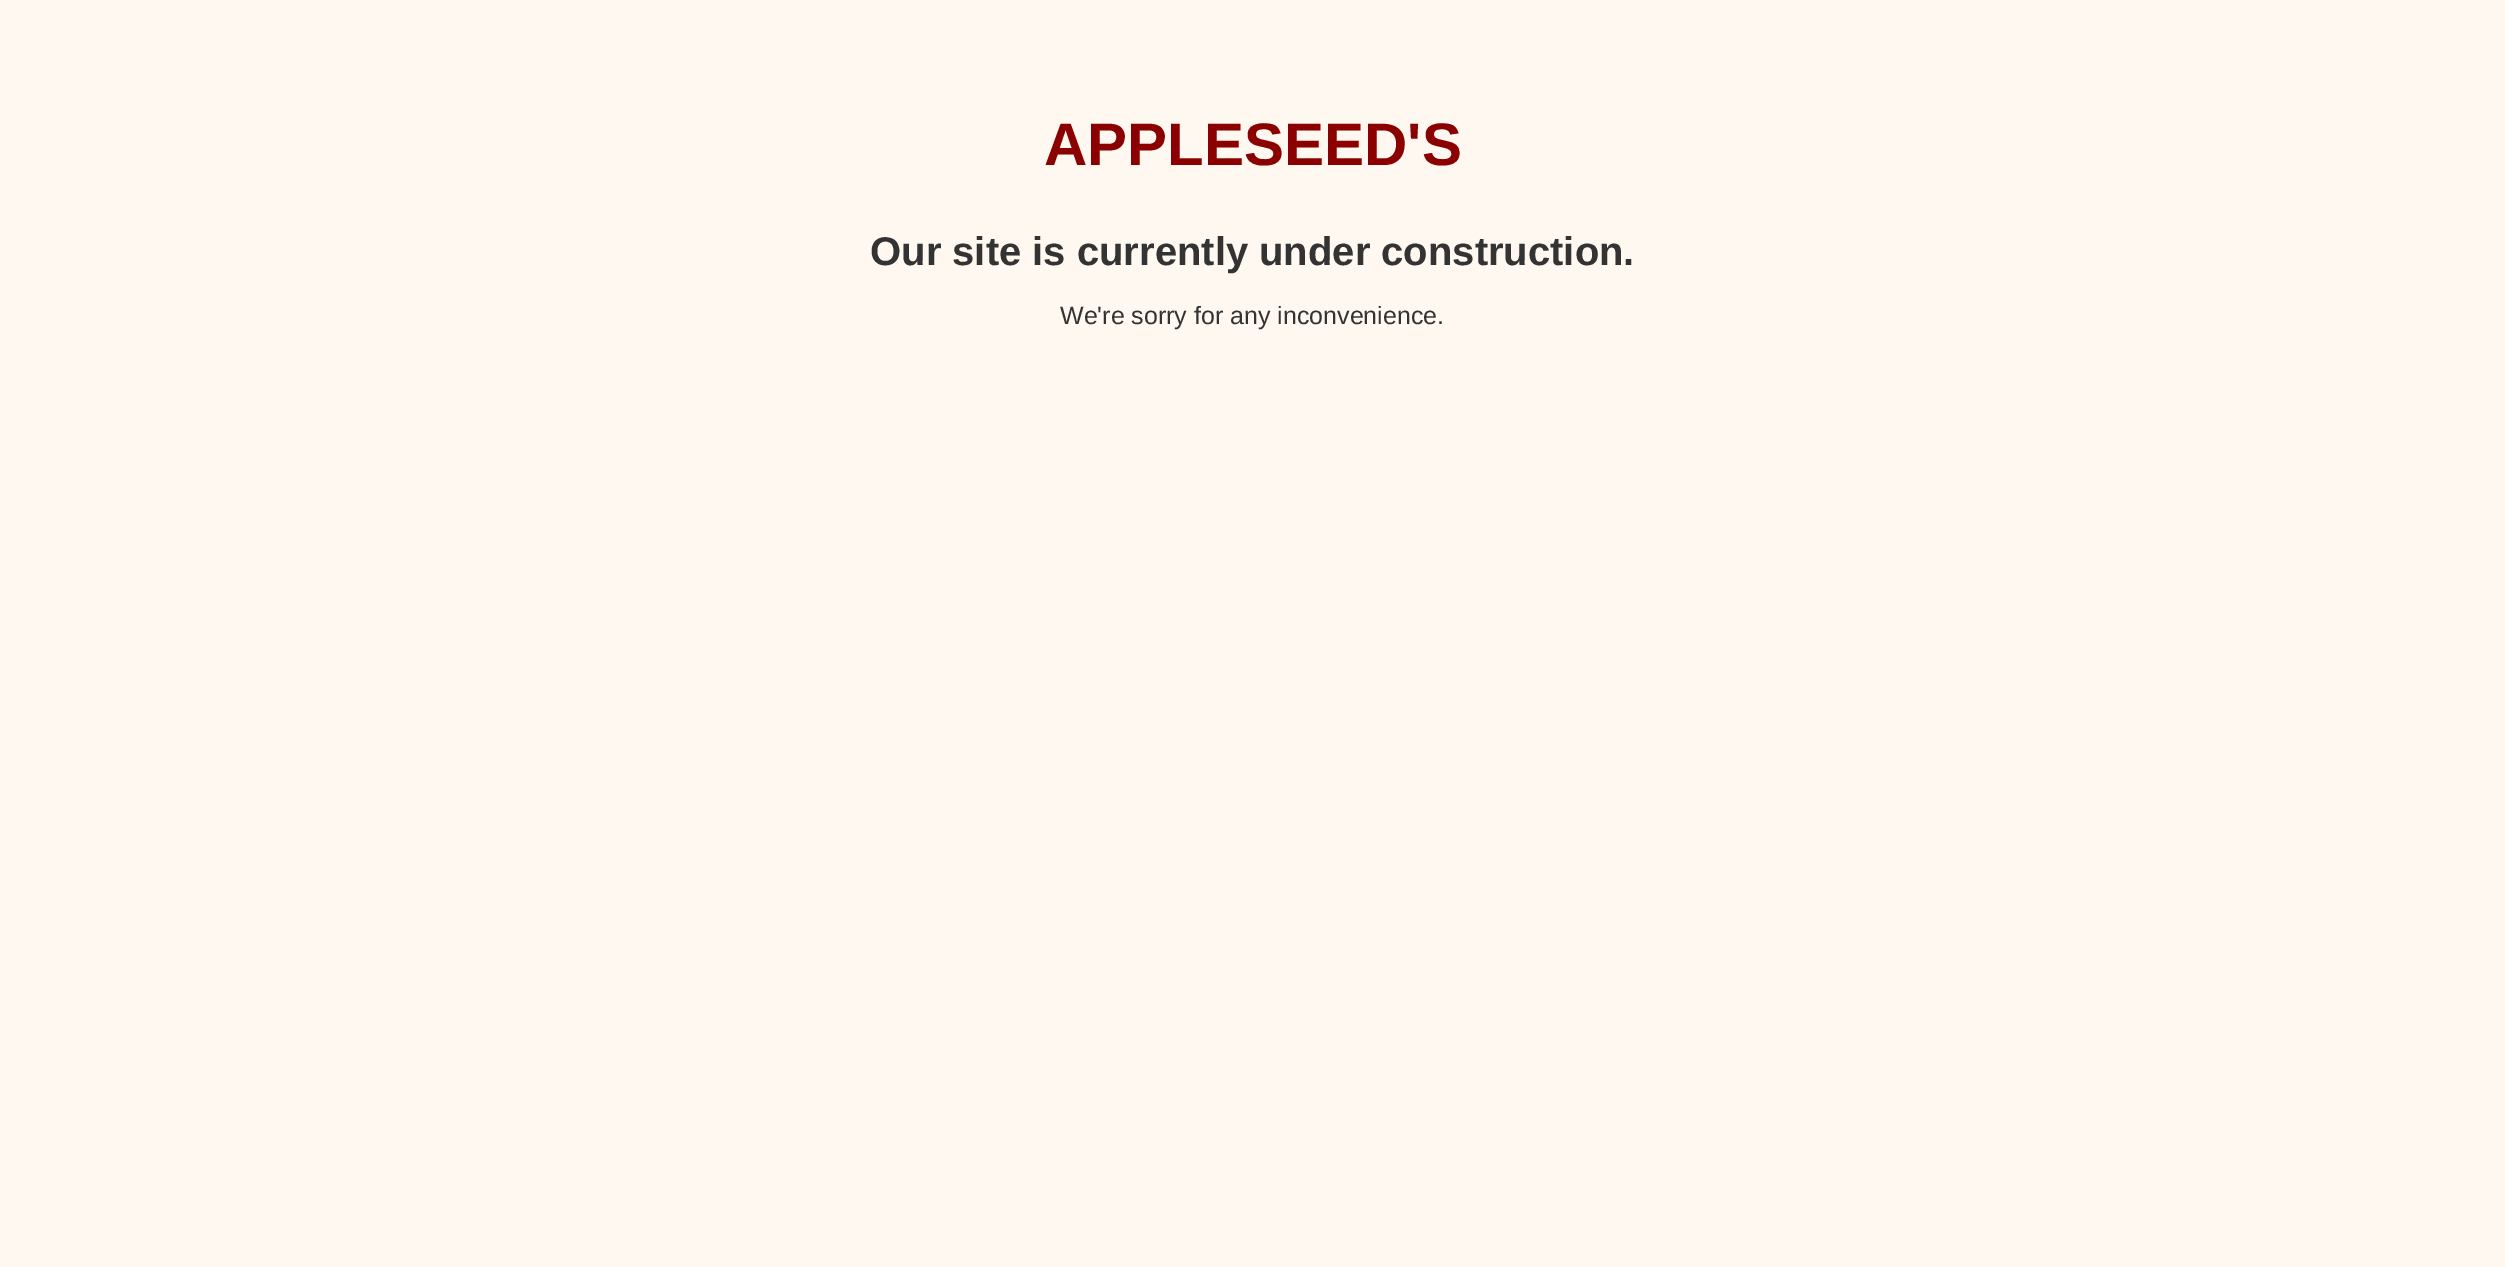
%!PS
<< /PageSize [2505 1267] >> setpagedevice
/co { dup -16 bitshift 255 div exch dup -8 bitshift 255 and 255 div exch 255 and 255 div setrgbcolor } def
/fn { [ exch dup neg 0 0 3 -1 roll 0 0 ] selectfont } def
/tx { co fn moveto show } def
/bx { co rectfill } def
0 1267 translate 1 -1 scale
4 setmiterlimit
0 0 2505 1267 16#FFF8F0 bx
(APPLESEED'S) 1044 165 /LiberationSans-Bold 60 16#8B0000 tx
(Our site is currently under construction.) 870 265 /LiberationSans-Bold 40 16#333333 tx
(We're sorry for any inconvenience.) 1060 324 /LiberationSans-Regular 25 16#333333 tx
showpage
